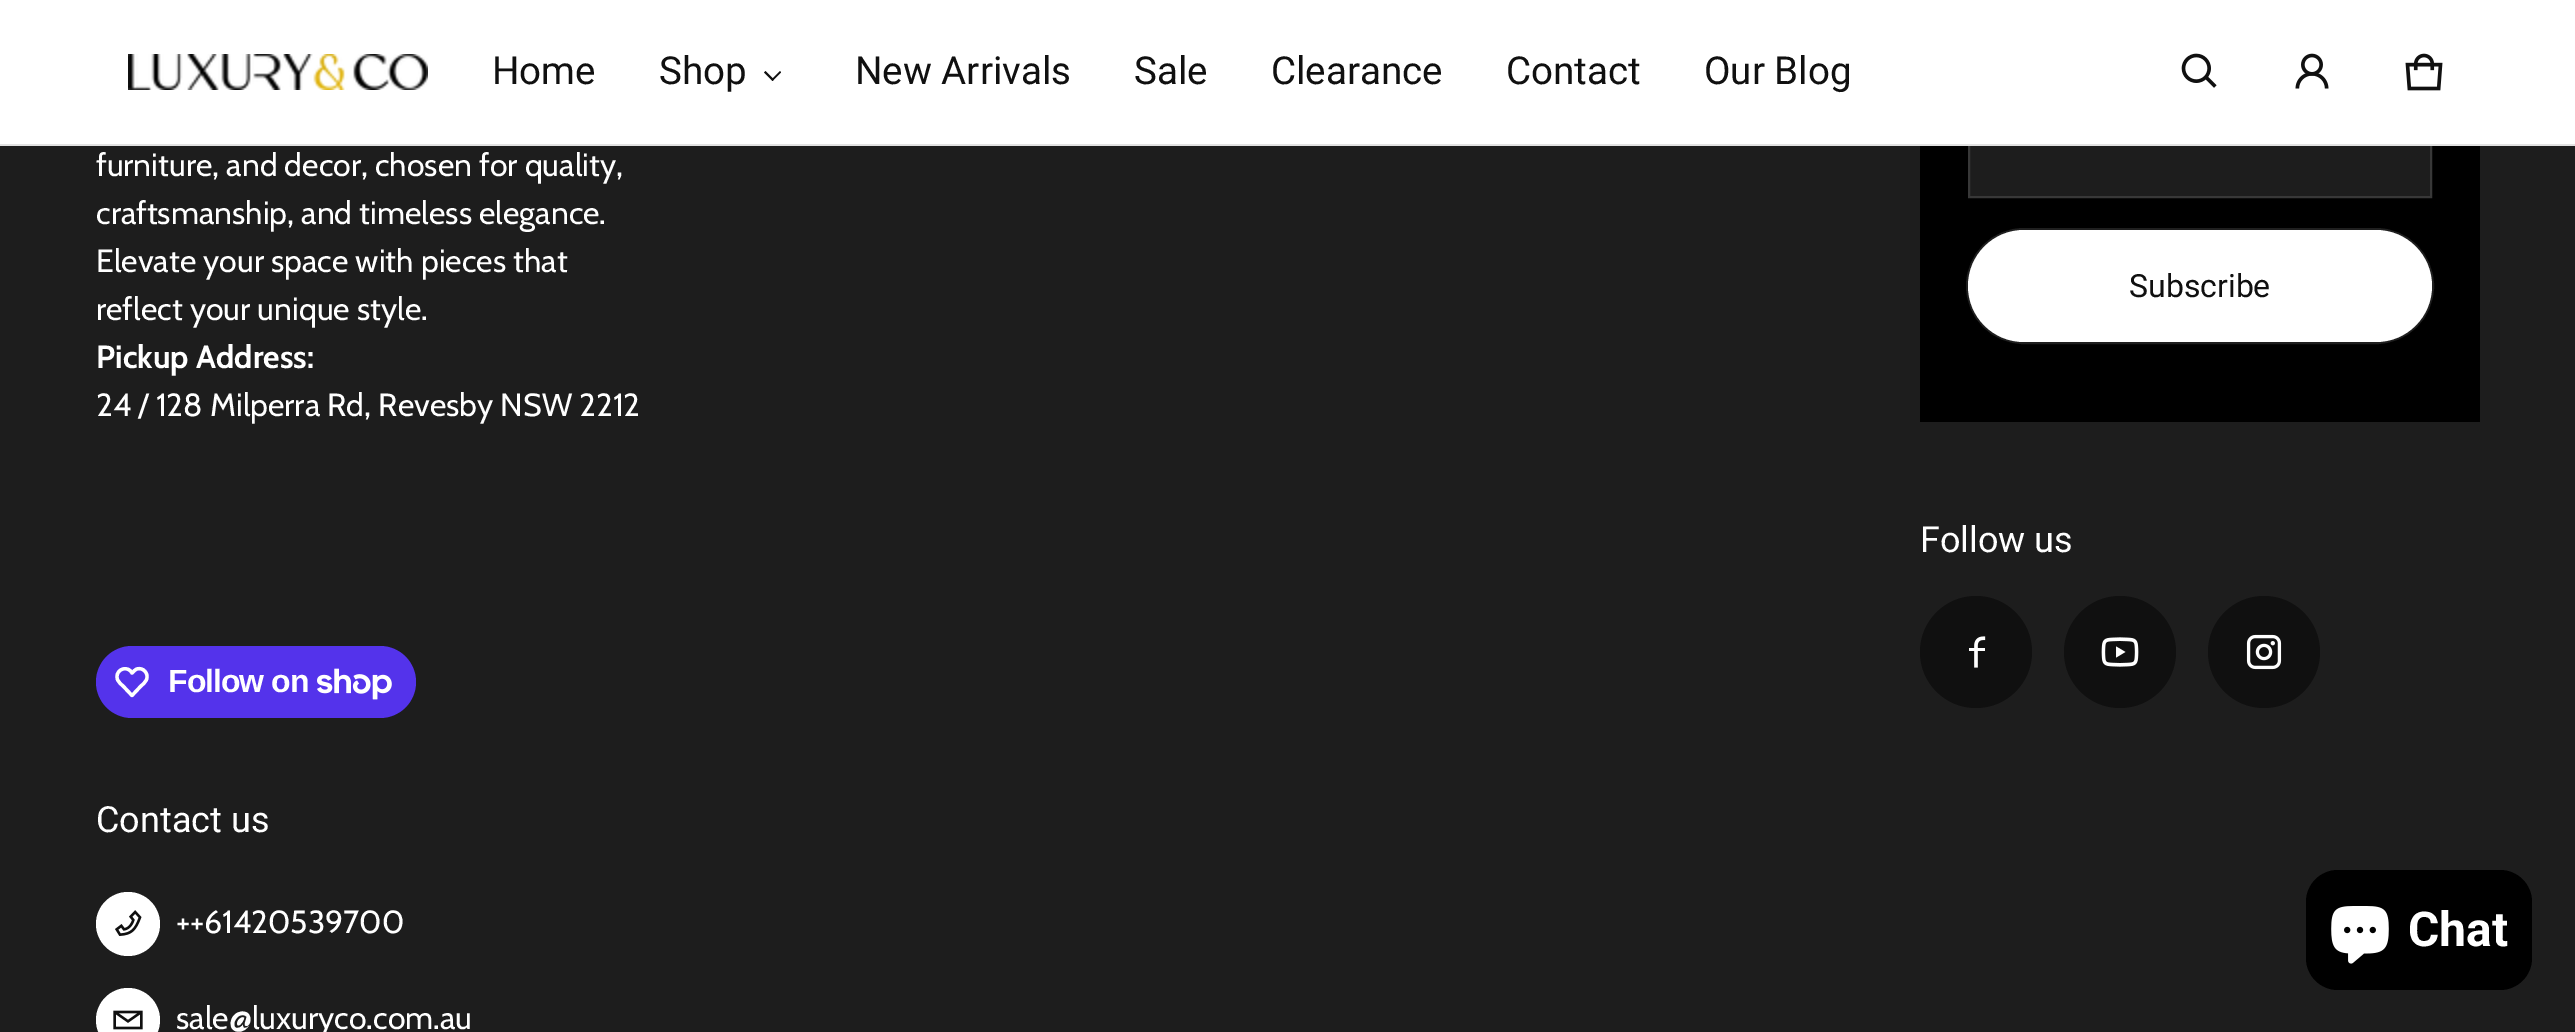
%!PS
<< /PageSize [2575 1032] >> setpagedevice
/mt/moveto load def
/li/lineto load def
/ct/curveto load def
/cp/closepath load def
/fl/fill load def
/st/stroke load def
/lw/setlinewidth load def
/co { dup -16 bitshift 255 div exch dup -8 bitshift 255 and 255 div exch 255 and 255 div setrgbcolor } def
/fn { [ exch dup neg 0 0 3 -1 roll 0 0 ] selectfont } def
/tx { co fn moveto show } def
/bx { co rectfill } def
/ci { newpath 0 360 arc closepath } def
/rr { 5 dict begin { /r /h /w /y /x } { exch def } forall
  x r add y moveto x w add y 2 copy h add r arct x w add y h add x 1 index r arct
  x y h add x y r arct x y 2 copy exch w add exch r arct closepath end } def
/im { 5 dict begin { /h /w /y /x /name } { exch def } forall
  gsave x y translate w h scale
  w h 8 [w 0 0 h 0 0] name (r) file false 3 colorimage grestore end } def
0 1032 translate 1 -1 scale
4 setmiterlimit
0 0 2575 1032 16#1D1D1D bx
1920 146 560 276 16#000000 bx
1970 146 460 50 16#1D1D1D bx
16#383838 co
2 lw
1969 87 462 110 rectstroke
0 0 2575 144 16#FFFFFF bx
0 144 2575 2 16#E2E2E2 bx
(media/1.raw) 128 54 300 36 im
16#101010 co
765.5 71 mt 774 79.5 li 772.5 81 li 764 72.5 li cp fl
771.5 79.5 mt 780 71 li 781 72.5 li 772.5 81 li cp fl
(media/2.raw) 2181 53 36 35 im
(media/3.raw) 2295 53 34 36 im
(media/4.raw) 2405 53 38 38 im
16#5433EB co
96 646 320 72 36 rr fl
16#FFFFFF co
3.3 lw
1 setlinejoin
130.5 671 mt 132 673 li 133.5 671.5 135 669.5 137 669 ct 143 667 149 673.5 146.5 679.5 ct 145.5 682.5 142.5 684.5 140.5 686.5 ct 132 695.5 li 123.5 686.5 li 121.5 684.5 118.5 682.5 117.5 679.5 ct 114.5 671.5 124.5 665 130.5 671 ct cp st
(media/5.raw) 317 668 75 32 im
128 924 32 ci fl
(media/6.raw) 115 910 27 26 im
128 1020 32 ci fl
(media/7.raw) 113 1010 30 20 im
16#1F1F1F co
2 lw
0 setlinejoin
1967 229 466 114 57 rr st
16#FFFFFF co
1968 230 464 112 56 rr fl
16#101010 co
1976 652 56 ci fl
(media/8.raw) 1969 636 17 32 im
2120 652 56 ci fl
(media/9.raw) 2101 637 38 30 im
2264 652 56 ci fl
(media/10.raw) 2246 634 36 36 im
16#000000 co
2306 870 226 120 32 rr fl
(media/11.raw) 2331 906 58 58 im
(Home) 492 84 /Roboto-Regular 38.5 16#101010 tx
(Shop) 659 84 /Roboto-Regular 38.5 16#101010 tx
(New Arrivals) 855 84 /Roboto-Regular 38.5 16#101010 tx
(Sale) 1134 84 /Roboto-Regular 38.5 16#101010 tx
(Clearance) 1271 84 /Roboto-Regular 38.5 16#101010 tx
(Contact) 1506 84 /Roboto-Regular 38.5 16#101010 tx
(Our Blog) 1704 84 /Roboto-Regular 38.5 16#101010 tx
(furniture, and decor, chosen for quality,) 96 176 /Cabin-Regular 32 16#FFFFFF tx
(craftsmanship, and timeless elegance.) 96 224 /Cabin-Regular 32 16#FFFFFF tx
(Elevate your space with pieces that) 96 272 /Cabin-Regular 32 16#FFFFFF tx
(reflect your unique style.) 96 320 /Cabin-Regular 32 16#FFFFFF tx
(Pickup Address:) 96 368 /Cabin-Bold 32 16#FFFFFF tx
(24 / 128 Milperra Rd, Revesby NSW 2212) 96 416 /Cabin-Regular 32 16#FFFFFF tx
/LiberationSans-Bold 32 fn
168 692 mt -1 0 (Follow on) ashow
(Contact us) 96 832 /Roboto-Regular 36 16#FFFFFF tx
(++61420539700) 176 933 /Cabin-Regular 32 16#FFFFFF tx
(sale@luxuryco.com.au) 176 1029 /Cabin-Regular 32 16#FFFFFF tx
(Subscribe) 2129 297 /Roboto-Regular 32 16#101010 tx
(Follow us) 1920 552 /Roboto-Regular 36 16#FFFFFF tx
(Chat) 2408 946 /Roboto-Bold 48 16#FFFFFF tx
showpage
